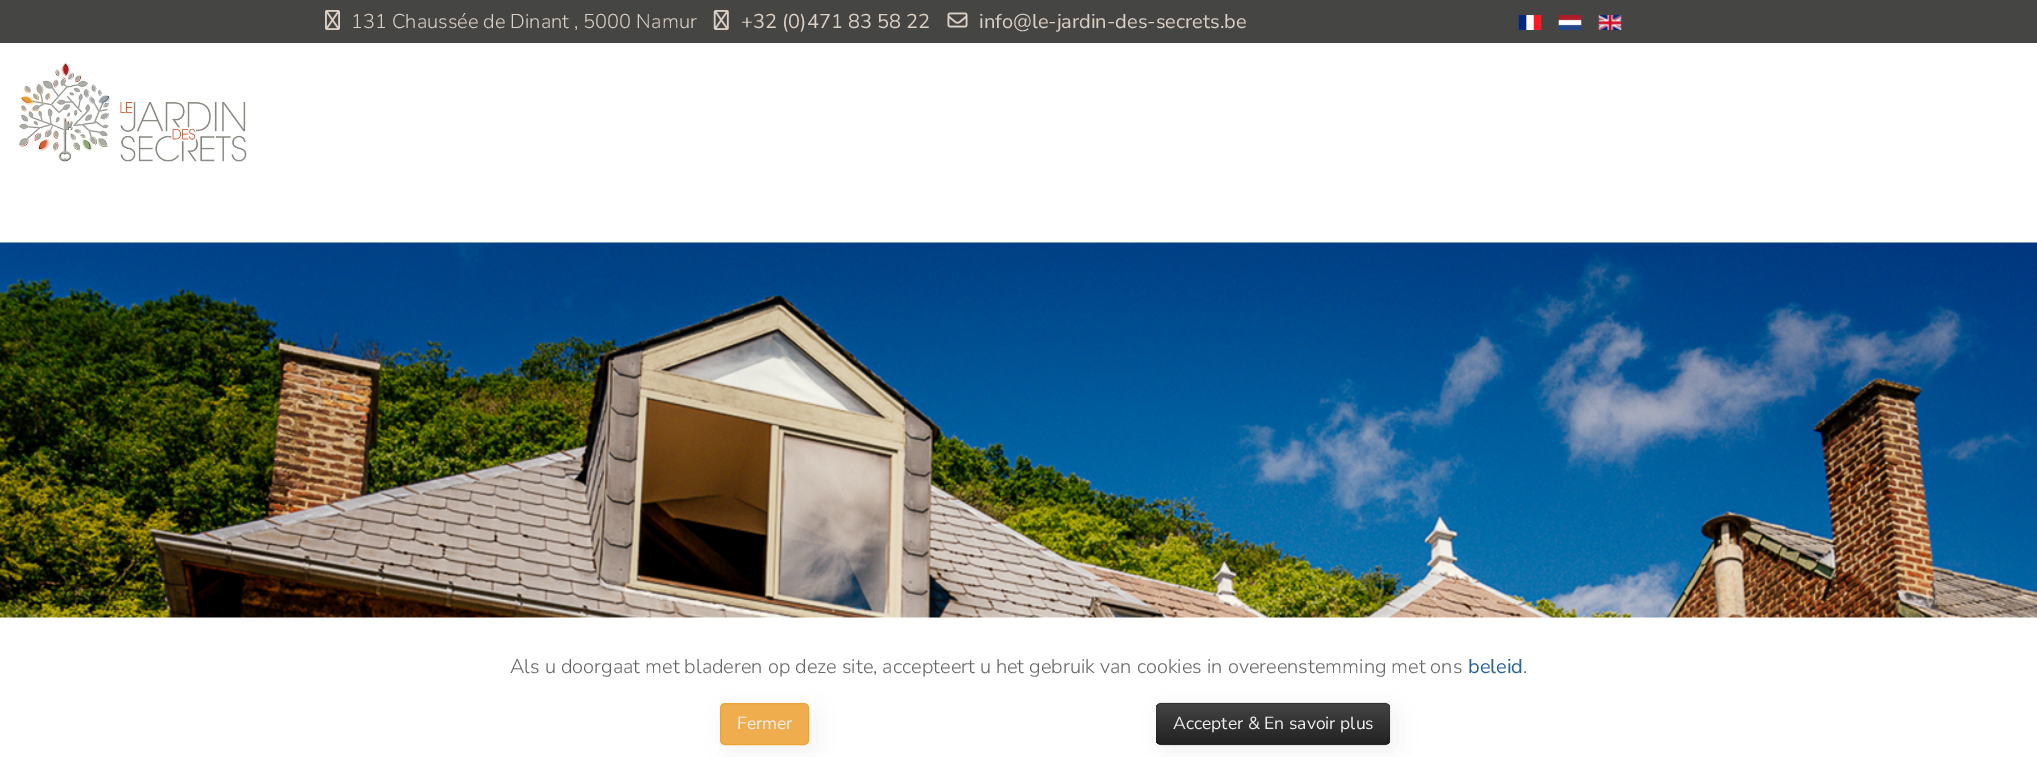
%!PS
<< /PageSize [2037 757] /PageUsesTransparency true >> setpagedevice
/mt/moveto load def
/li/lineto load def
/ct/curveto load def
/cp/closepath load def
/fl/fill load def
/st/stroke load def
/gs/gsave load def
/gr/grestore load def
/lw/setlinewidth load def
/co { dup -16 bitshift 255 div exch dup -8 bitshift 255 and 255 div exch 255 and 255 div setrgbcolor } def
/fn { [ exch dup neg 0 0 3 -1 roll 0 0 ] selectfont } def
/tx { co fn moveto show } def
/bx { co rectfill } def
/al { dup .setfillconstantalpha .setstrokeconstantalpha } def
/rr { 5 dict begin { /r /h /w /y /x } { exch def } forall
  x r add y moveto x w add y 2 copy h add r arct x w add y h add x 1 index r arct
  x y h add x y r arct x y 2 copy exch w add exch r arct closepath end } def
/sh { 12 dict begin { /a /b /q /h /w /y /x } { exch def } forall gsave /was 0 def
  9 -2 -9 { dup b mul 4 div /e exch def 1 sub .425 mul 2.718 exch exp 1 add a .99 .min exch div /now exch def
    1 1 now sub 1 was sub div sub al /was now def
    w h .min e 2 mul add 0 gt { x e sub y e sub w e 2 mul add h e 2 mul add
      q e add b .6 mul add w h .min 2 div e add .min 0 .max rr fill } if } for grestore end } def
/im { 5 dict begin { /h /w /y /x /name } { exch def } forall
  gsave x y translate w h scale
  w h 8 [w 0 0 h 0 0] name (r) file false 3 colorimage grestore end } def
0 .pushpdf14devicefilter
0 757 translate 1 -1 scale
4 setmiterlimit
0 0 2037 757 16#FFFFFF bx
0 0 2037 43 16#454643 bx
(media/1.raw) 325 10 15 20 im
(media/2.raw) 713 10 16 20 im
(media/3.raw) 947 12 21 16 im
(media/4.raw) 1518 15 24 15 im
(media/5.raw) 1558 15 24 15 im
(media/6.raw) 1598 15 24 15 im
(media/7.raw) 19 62 228 100 im
(media/8.raw) 0 242 2037 376 im
16#000000 co
726 709 89 42 5 12.5 .05 sh
16#F0AD4E co
720.5 703.5 88 41 4.5 rr gs fl gr
16#EEA236 co
st
16#000000 co
1163 709 233 42 5 12.5 .05 sh
16#363636 co
1156 703 234 42 5 rr fl
gs
1156 703 234 42 5 rr clip newpath
gs 1156 704 mt 1390 704 li 1390 744 li 1156 744 li cp clip newpath
<< /ShadingType 2 /ColorSpace /DeviceRGB /Coords [1273 704 1273 744] /Extend [true true] /Function << /FunctionType 2 /Domain [0 1] /C0 [.267 .267 .267] /C1 [.133 .133 .133] /N 1 >> >> shfill gr
gr
0.25 al
16#000000 co
1.2 lw
1388 743 mt 1385 744.5 li 1161 744.5 li 1158 743 li st
0.1 al
1158 743 mt 1157.5 742.5 1157 741 1157 740 ct 1157 707.5 li 1157 706.5 1157.5 705 1158 704.5 ct 1159 703.5 1160 703 1161 703 ct 1385 703 li 1386 703 1387.5 703.5 1388 704.5 ct 1389 705 1389.5 706.5 1389.5 707.5 ct 1389.5 740 li 1389.5 741 1389 742.5 1388 743 ct st
1 al
(131 Chaussée de Dinant , 5000 Namur) 351 28 /NunitoSans-Light 20 16#DCCFC3 tx
(+32 \(0\)471 83 58 22) 741 28 /NunitoSans-Regular 20 16#DCCFC3 tx
(info@le-jardin-des-secrets.be) 979 28 /NunitoSans-Regular 20 16#DCCFC3 tx
(Als u doorgaat met bladeren op deze site, accepteert u het gebruik van cookies in overeenstemming met ons) 510 673 /NunitoSans-Light 20 16#666666 tx
(beleid) 1468 673 /NunitoSans-Regular 20 16#2A6496 tx
(.) 1523 673 /NunitoSans-Light 20 16#666666 tx
(Fermer) 737 729 /NunitoSans-Regular 17.5 16#EEEEEE tx
(Accepter & En savoir plus) 1173 729 /NunitoSans-Regular 17.5 16#EEEEEE tx
.poppdf14devicefilter showpage
